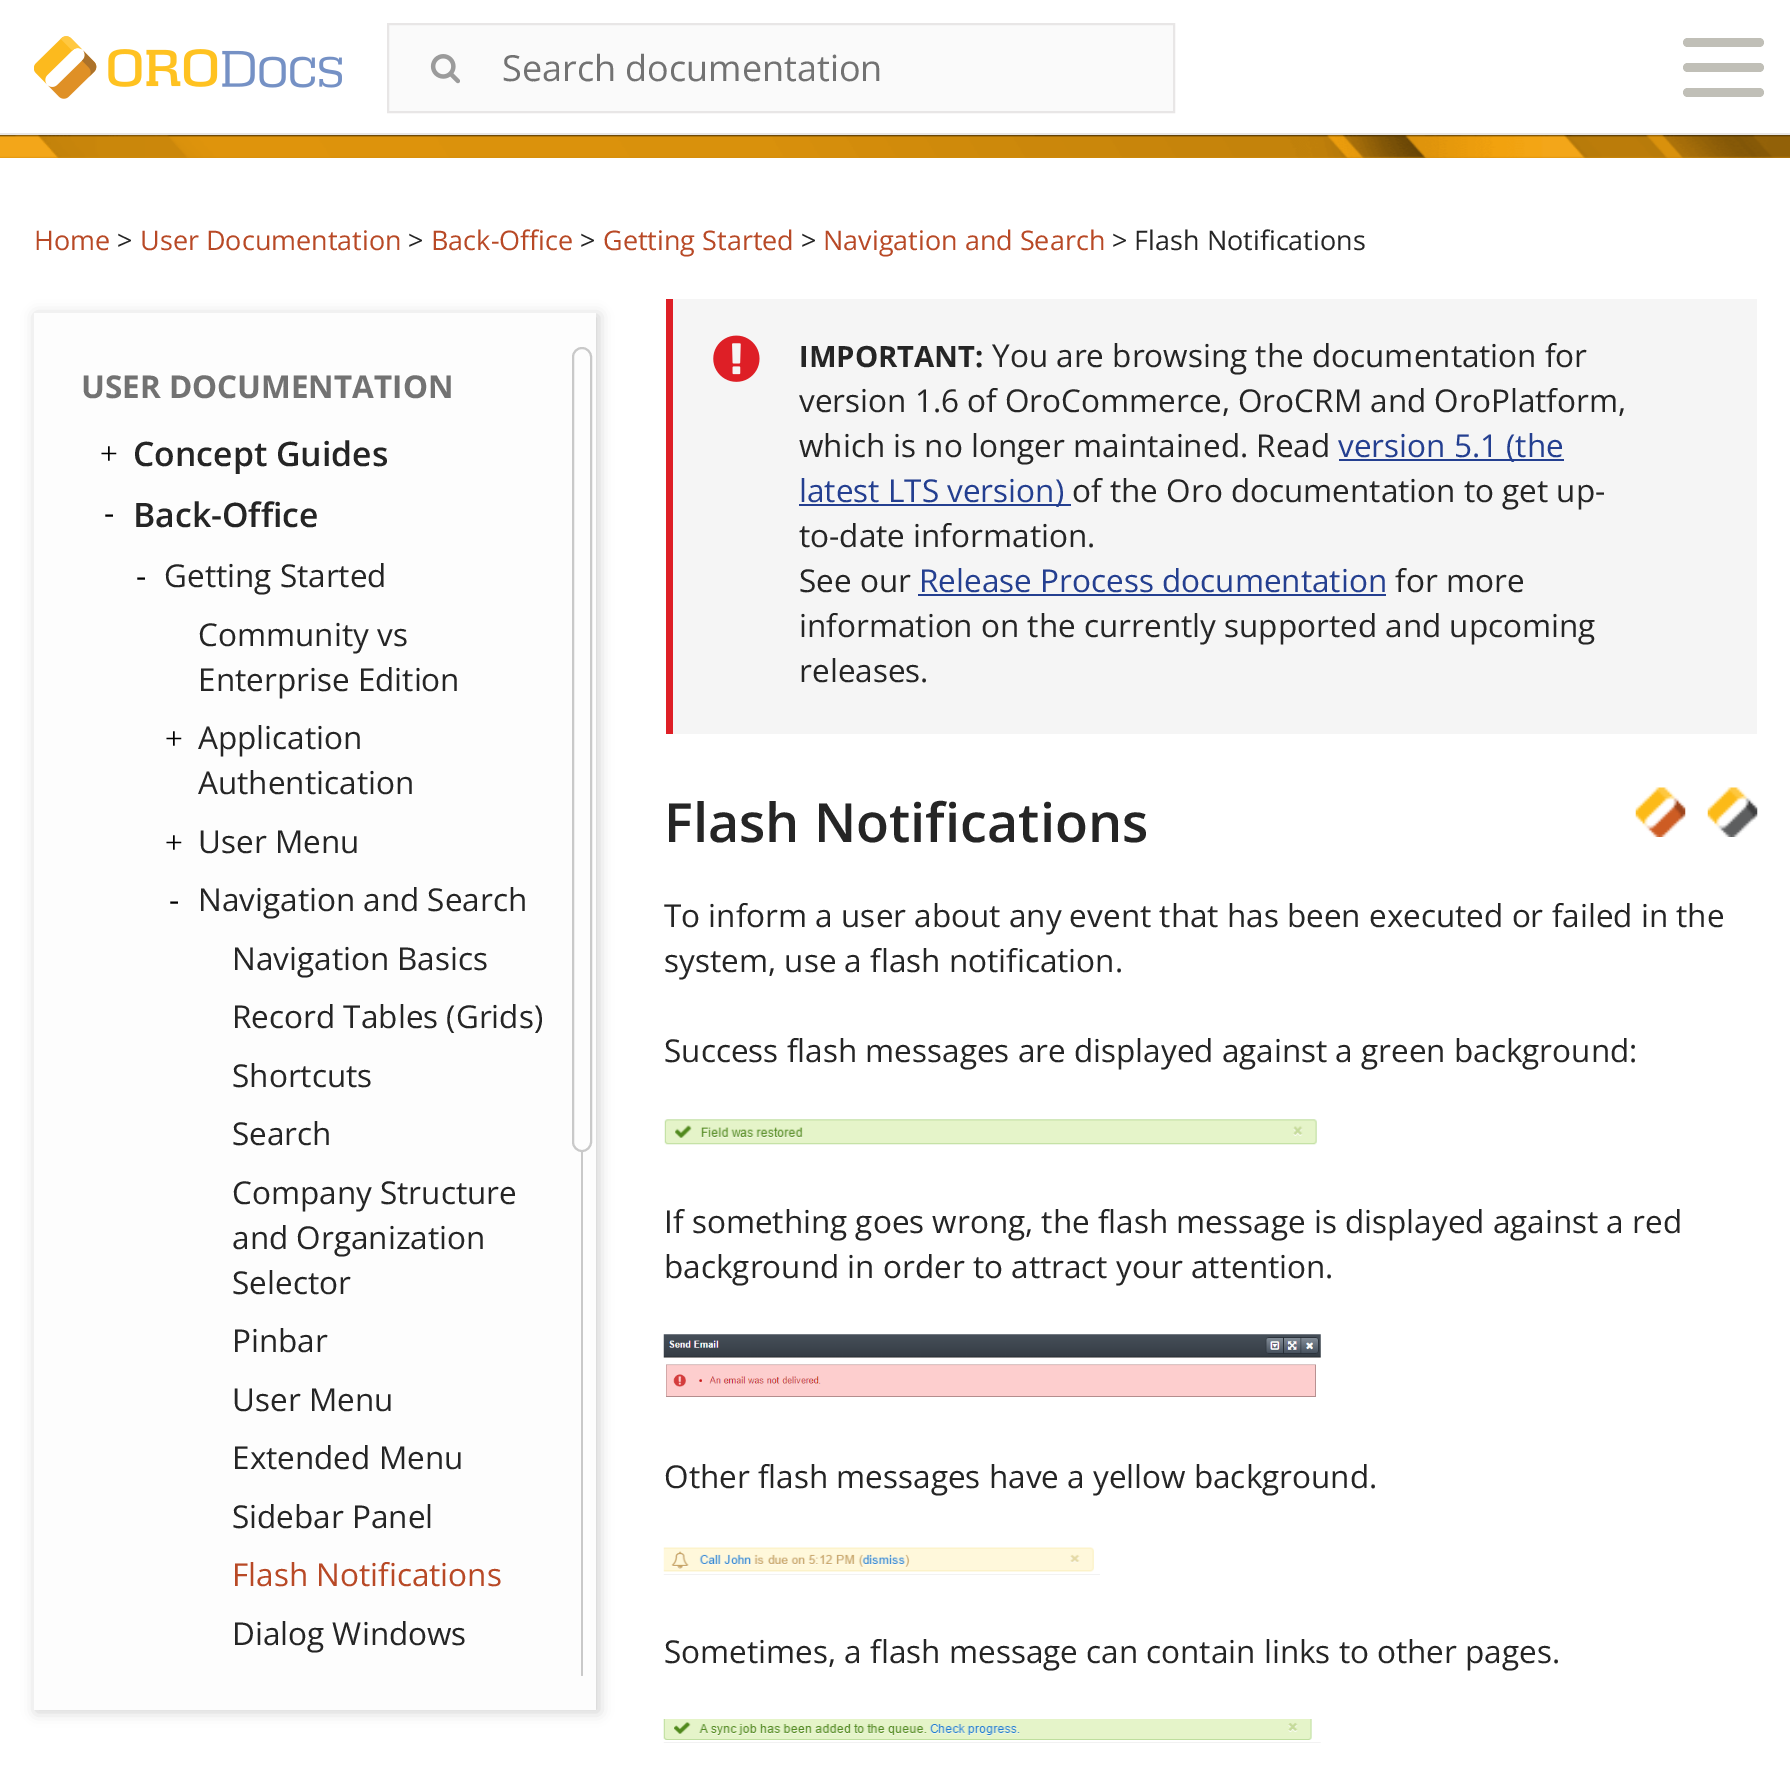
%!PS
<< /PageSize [1790 1777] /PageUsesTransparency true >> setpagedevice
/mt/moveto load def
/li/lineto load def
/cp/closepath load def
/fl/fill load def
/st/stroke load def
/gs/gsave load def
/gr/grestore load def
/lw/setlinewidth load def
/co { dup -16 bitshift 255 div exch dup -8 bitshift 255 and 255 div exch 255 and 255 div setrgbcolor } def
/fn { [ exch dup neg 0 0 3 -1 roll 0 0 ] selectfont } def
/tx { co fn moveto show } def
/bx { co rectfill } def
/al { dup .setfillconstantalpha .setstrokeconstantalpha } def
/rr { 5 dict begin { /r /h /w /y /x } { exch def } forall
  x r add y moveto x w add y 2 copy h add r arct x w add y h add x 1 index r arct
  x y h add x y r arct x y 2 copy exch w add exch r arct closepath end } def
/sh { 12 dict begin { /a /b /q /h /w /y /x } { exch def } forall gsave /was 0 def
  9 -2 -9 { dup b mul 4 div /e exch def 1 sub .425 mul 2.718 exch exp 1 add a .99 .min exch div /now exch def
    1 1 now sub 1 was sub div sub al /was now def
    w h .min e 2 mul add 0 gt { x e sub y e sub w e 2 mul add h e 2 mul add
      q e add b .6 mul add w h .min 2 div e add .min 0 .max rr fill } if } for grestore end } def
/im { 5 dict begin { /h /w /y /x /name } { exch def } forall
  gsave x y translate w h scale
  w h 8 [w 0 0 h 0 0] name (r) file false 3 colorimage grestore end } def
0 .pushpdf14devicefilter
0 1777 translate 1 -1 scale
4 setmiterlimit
0 0 1790 1777 16#FFFFFF bx
0 133 1790 2 16#E8E6E6 bx
(media/1.raw) 34 36 308 63 im
16#FAFAFA co
388 24 mt 1174 24 li 1174 112 li 388 112 li cp gs fl gr
16#E8E6E6 co
2 lw
st
(media/2.raw) 430 54 30 30 im
16#C0BFB7 co
1683 38 81 9 4.5 rr fl
1683 63 81 9 4.5 rr fl
1683 88 81 9 4.5 rr fl
0 156 1790 2 16#D38C0B bx
(media/3.raw) 0 135 1790 23 im
16#858585 co
36 315 563 1397 0 7 .4 sh
34 313 562 1397 16#FDFDFD bx
16#C9C9C9 co
581 347 2 1329 1 rr fl
16#FDFDFD co
573 348 18 803 9 rr gs fl gr
16#C9C9C9 co
st
673 299 1084 435 16#F5F5F5 bx
666 299 7 435 16#DE1F26 bx
1339 459 225 2 16#243F90 bx
799 504 272 2 16#243F90 bx
(media/4.raw) 713 335 47 47 im
918 594 468 2 16#243F90 bx
(media/5.raw) 1635 787 51 50 im
(media/6.raw) 1707 787 51 50 im
(media/7.raw) 664 1119 653 26 im
(media/8.raw) 663 1334 658 63 im
(media/9.raw) 663 1547 437 28 im
(media/10.raw) 663 1719 658 24 im
(Search documentation) 502 81 /OpenSans-Regular 36 16#727272 tx
(Home) 34 250 /OpenSans-Regular 27 16#B84926 tx
(>) 117 250 /OpenSans-Regular 27 16#252525 tx
(User Documentation) 140 250 /OpenSans-Regular 27 16#B84926 tx
(>) 408 250 /OpenSans-Regular 27 16#252525 tx
(Back-Office) 431 250 /OpenSans-Regular 27 16#B84926 tx
(>) 580 250 /OpenSans-Regular 27 16#252525 tx
(Getting Started) 603 250 /OpenSans-Regular 27 16#B84926 tx
(>) 801 250 /OpenSans-Regular 27 16#252525 tx
(Navigation and Search) 823 250 /OpenSans-Regular 27 16#B84926 tx
(> Flash Notifications) 1112 250 /OpenSans-Regular 27 16#252525 tx
(USER DOCUMENTATION) 81 398 /OpenSans-Bold 31.5 16#727272 tx
(+) 100 464 /LiberationSerif-Regular 31.5 16#000000 tx
(Concept Guides) 133 466 /OpenSans-SemiBold 33.75 16#252525 tx
(-) 104 524 /OpenSans-Regular 31.5 16#000000 tx
(Back-Office) 133 527 /OpenSans-SemiBold 33.75 16#252525 tx
(-) 136 587 /OpenSans-Regular 31.5 16#000000 tx
(Getting Started) 164 587 /OpenSans-Regular 31.5 16#252525 tx
(Community vs) 198 646 /OpenSans-Regular 31.5 16#252525 tx
(Enterprise Edition) 198 691 /OpenSans-Regular 31.5 16#252525 tx
(+) 165 749 /LiberationSerif-Regular 31.5 16#000000 tx
(Application) 198 749 /OpenSans-Regular 31.5 16#252525 tx
(Authentication) 198 794 /OpenSans-Regular 31.5 16#252525 tx
(+) 165 853 /LiberationSerif-Regular 31.5 16#000000 tx
(User Menu) 198 853 /OpenSans-Regular 31.5 16#252525 tx
(-) 169 911 /OpenSans-Regular 31.5 16#000000 tx
(Navigation and Search) 198 911 /OpenSans-Regular 31.5 16#252525 tx
(Navigation Basics) 232 970 /OpenSans-Regular 31.5 16#252525 tx
(Record Tables \(Grids\)) 232 1028 /OpenSans-Regular 31.5 16#252525 tx
(Shortcuts) 232 1087 /OpenSans-Regular 31.5 16#252525 tx
(Search) 232 1145 /OpenSans-Regular 31.5 16#252525 tx
(Company Structure) 232 1204 /OpenSans-Regular 31.5 16#252525 tx
(and Organization) 232 1249 /OpenSans-Regular 31.5 16#252525 tx
(Selector) 232 1294 /OpenSans-Regular 31.5 16#252525 tx
(Pinbar) 232 1352 /OpenSans-Regular 31.5 16#252525 tx
(User Menu) 232 1411 /OpenSans-Regular 31.5 16#252525 tx
(Extended Menu) 232 1469 /OpenSans-Regular 31.5 16#252525 tx
(Sidebar Panel) 232 1528 /OpenSans-Regular 31.5 16#252525 tx
(Flash Notifications) 232 1586 /OpenSans-Regular 31.5 16#B84926 tx
(Dialog Windows) 232 1645 /OpenSans-Regular 31.5 16#252525 tx
(You are browsing the documentation for) 992 367 /OpenSans-Regular 31.5 16#252525 tx
(version 1.6 of OroCommerce, OroCRM and OroPlatform,) 799 412 /OpenSans-Regular 31.5 16#252525 tx
(which is no longer maintained. Read) 799 457 /OpenSans-Regular 31.5 16#252525 tx
(version 5.1 \(the) 1338 457 /OpenSans-Regular 31.5 16#243F90 tx
(latest LTS version\)) 799 502 /OpenSans-Regular 31.5 16#243F90 tx
(of the Oro documentation to get up-) 1072 502 /OpenSans-Regular 31.5 16#252525 tx
(to-date information.) 799 547 /OpenSans-Regular 31.5 16#252525 tx
(IMPORTANT:) 799 367 /OpenSans-Bold 29.25 16#252525 tx
(See our) 799 592 /OpenSans-Regular 31.5 16#252525 tx
(Release Process documentation) 919 592 /OpenSans-Regular 31.5 16#243F90 tx
(for more) 1395 592 /OpenSans-Regular 31.5 16#252525 tx
(information on the currently supported and upcoming) 799 637 /OpenSans-Regular 31.5 16#252525 tx
(releases.) 799 682 /OpenSans-Regular 31.5 16#252525 tx
(Flash Notifications) 664 842 /OpenSans-SemiBold 54 16#252525 tx
(To inform a user about any event that has been executed or failed in the) 664 927 /OpenSans-Regular 31.5 16#252525 tx
(system, use a flash notification.) 664 972 /OpenSans-Regular 31.5 16#252525 tx
(Success flash messages are displayed against a green background:) 664 1062 /OpenSans-Regular 31.5 16#252525 tx
(If something goes wrong, the flash message is displayed against a red) 664 1233 /OpenSans-Regular 31.5 16#252525 tx
(background in order to attract your attention.) 664 1278 /OpenSans-Regular 31.5 16#252525 tx
(Other flash messages have a yellow background.) 664 1488 /OpenSans-Regular 31.5 16#252525 tx
(Sometimes, a flash message can contain links to other pages.) 664 1663 /OpenSans-Regular 31.5 16#252525 tx
.poppdf14devicefilter showpage
